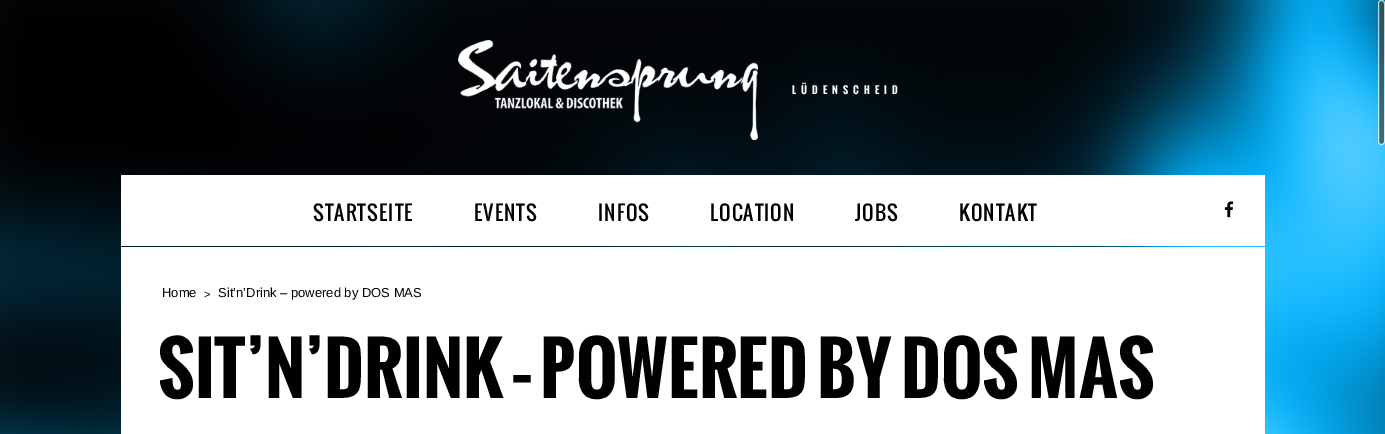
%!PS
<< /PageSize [1385 434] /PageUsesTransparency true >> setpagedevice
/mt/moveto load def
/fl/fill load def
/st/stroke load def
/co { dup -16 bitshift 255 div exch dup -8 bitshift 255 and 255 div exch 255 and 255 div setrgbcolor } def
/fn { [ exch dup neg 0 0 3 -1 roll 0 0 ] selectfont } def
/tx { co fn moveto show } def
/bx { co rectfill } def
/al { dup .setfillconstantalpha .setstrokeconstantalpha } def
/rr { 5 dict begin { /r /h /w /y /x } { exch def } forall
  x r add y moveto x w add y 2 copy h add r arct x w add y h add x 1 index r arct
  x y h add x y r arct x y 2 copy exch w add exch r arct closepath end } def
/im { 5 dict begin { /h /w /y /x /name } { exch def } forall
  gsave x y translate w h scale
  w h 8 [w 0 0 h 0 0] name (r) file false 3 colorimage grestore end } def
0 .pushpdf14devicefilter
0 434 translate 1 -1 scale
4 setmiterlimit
0 0 1385 434 16#FFFFFF bx
(media/1.raw) 0 0 1385 434 im
(media/2.raw) 458 40 300 100 im
121 175 1144 71 16#FFFFFF bx
(media/3.raw) 1224 201 10 17 im
121 247 1144 187 16#FFFFFF bx
0.71 al
16#424242 co
1379 1 5 143 2.5 rr fl
16#FFFFFF co
1378.5 .5 6 144 3 rr st
/Oswald-Bold 10 fn
1 al
792 94 mt 5 0 (LÜDENSCHEID) ashow
/Oswald-Regular 20 fn
16#010101 co
313 221 mt 1 0 (STARTSEITE) ashow
474 221 mt 1 0 (EVENTS) ashow
598 221 mt 1 0 (INFOS) ashow
710 221 mt 1 0 (LOCATION) ashow
855 221 mt 1 0 (JOBS) ashow
959 221 mt 1 0 (KONTAKT) ashow
(Home) 162 297 /LiberationSans-Regular 13 16#010101 tx
(>) 204 298 /LiberationSans-Regular 11 16#010101 tx
(Sit’n’Drink – powered by DOS MAS) 218 297 /LiberationSans-Regular 13 16#010101 tx
(SIT’N’DRINK – POWERED BY DOS MAS) 158 398 /Oswald-Bold 70 16#010101 tx
.poppdf14devicefilter showpage
